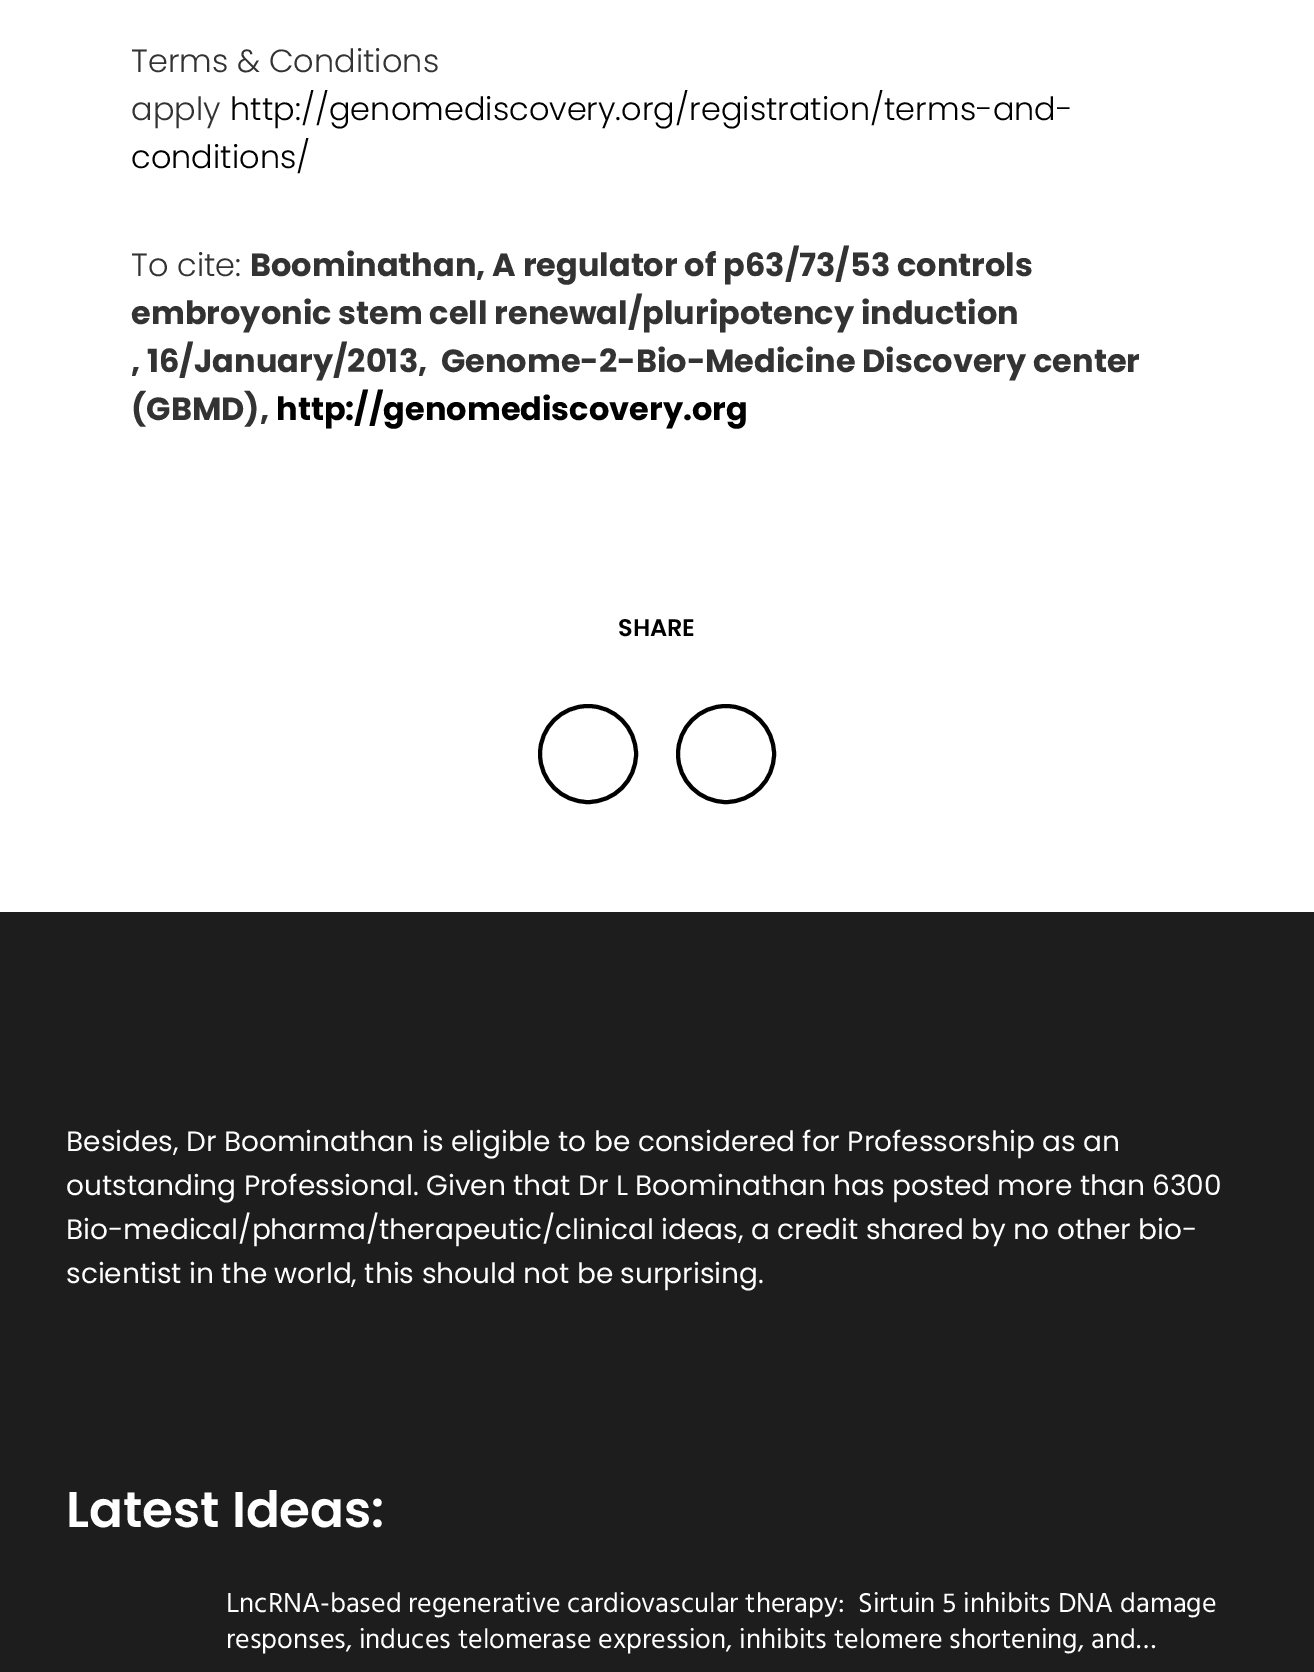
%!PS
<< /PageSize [1314 1672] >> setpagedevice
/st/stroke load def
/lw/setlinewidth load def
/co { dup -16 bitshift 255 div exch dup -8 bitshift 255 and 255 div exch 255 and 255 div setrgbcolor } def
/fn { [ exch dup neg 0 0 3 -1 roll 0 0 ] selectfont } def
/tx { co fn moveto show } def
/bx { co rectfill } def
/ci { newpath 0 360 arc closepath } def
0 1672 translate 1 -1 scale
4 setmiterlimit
0 0 1314 1672 16#1D1D1E bx
0 0 1314 912 16#FFFFFF bx
16#000000 co
4 lw
588 754 48 ci st
726 754 48 ci st
(Terms & Conditions) 131 72 /Poppins-Light 32 16#333333 tx
(apply) 131 120 /Poppins-Light 32 16#333333 tx
(http://genomediscovery.org/registration/terms-and-) 230 120 /Poppins-Light 32 16#000000 tx
(conditions/) 131 168 /Poppins-Light 32 16#000000 tx
(To cite:) 131 276 /Poppins-Light 32 16#333333 tx
(Boominathan, A regulator of p63/73/53 controls) 250 276 /Poppins-Bold 32 16#333333 tx
(embroyonic stem cell renewal/pluripotency induction) 131 324 /Poppins-Bold 32 16#333333 tx
(, 16/January/2013,  Genome-2-Bio-Medicine Discovery center) 131 372 /Poppins-Bold 32 16#333333 tx
(\(GBMD\),) 131 420 /Poppins-Bold 32 16#333333 tx
(http://genomediscovery.org) 276 420 /Poppins-Bold 32 16#000000 tx
(SHARE) 618 636 /Poppins-SemiBold 24 16#000000 tx
(Besides, Dr Boominathan is eligible to be considered for Professorship as an) 66 1151 /Poppins-Regular 28 16#FFFFFF tx
(outstanding Professional. Given that Dr L Boominathan has posted more than 6300) 66 1195 /Poppins-Regular 28 16#FFFFFF tx
(Bio-medical/pharma/therapeutic/clinical ideas, a credit shared by no other bio-) 66 1239 /Poppins-Regular 28 16#FFFFFF tx
(scientist in the world, this should not be surprising.) 66 1283 /Poppins-Regular 28 16#FFFFFF tx
(Latest Ideas:) 66 1527 /Poppins-SemiBold 50 16#FFFFFF tx
(LncRNA-based regenerative cardiovascular therapy:) 226 1612 /Hind-Regular 28 16#FFFFFF tx
(Sirtuin 5 inhibits DNA damage) 858 1612 /Hind-Regular 28 16#FFFFFF tx
(responses, induces telomerase expression, inhibits telomere shortening, and…) 226 1648 /Hind-Regular 28 16#FFFFFF tx
showpage
